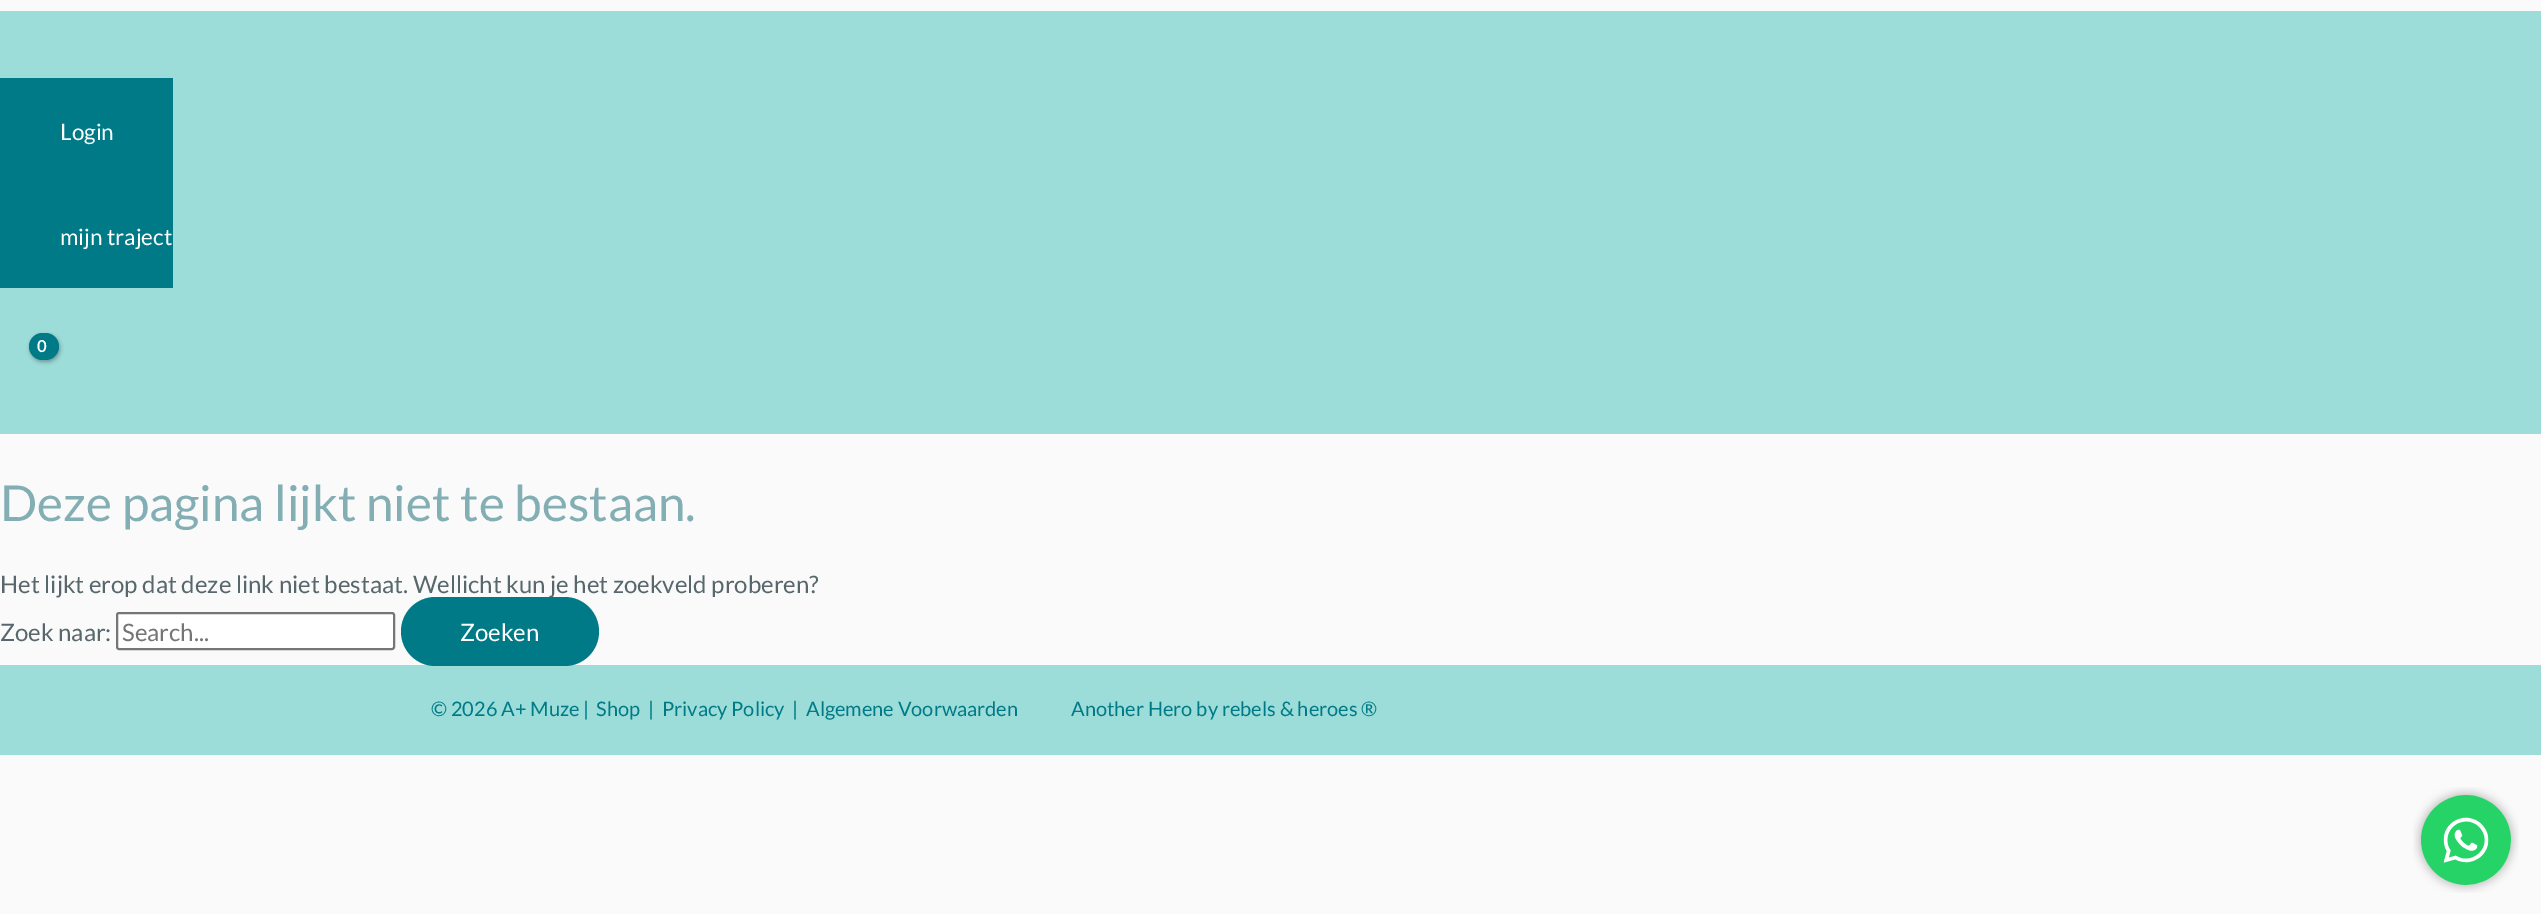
%!PS
<< /PageSize [2541 914] /PageUsesTransparency true >> setpagedevice
/mt/moveto load def
/fl/fill load def
/st/stroke load def
/gs/gsave load def
/gr/grestore load def
/lw/setlinewidth load def
/co { dup -16 bitshift 255 div exch dup -8 bitshift 255 and 255 div exch 255 and 255 div setrgbcolor } def
/fn { [ exch dup neg 0 0 3 -1 roll 0 0 ] selectfont } def
/tx { co fn moveto show } def
/bx { co rectfill } def
/al { dup .setfillconstantalpha .setstrokeconstantalpha } def
/rr { 5 dict begin { /r /h /w /y /x } { exch def } forall
  x r add y moveto x w add y 2 copy h add r arct x w add y h add x 1 index r arct
  x y h add x y r arct x y 2 copy exch w add exch r arct closepath end } def
/sh { 12 dict begin { /a /b /q /h /w /y /x } { exch def } forall gsave /was 0 def
  9 -2 -9 { dup b mul 4 div /e exch def 1 sub .425 mul 2.718 exch exp 1 add a .99 .min exch div /now exch def
    1 1 now sub 1 was sub div sub al /was now def
    w h .min e 2 mul add 0 gt { x e sub y e sub w e 2 mul add h e 2 mul add
      q e add b .6 mul add w h .min 2 div e add .min 0 .max rr fill } if } for grestore end } def
/im { 5 dict begin { /h /w /y /x /name } { exch def } forall
  gsave x y translate w h scale
  w h 8 [w 0 0 h 0 0] name (r) file false 3 colorimage grestore end } def
0 .pushpdf14devicefilter
0 914 translate 1 -1 scale
4 setmiterlimit
0 0 2541 914 16#FAFAFA bx
0 11 2541 423 16#9CDCD9 bx
0 78 173 210 16#007A87 bx
16#000000 co
30 335 30 27 13.5 2 .3 sh
16#007A87 co
29 333 30 27 13.5 rr fl
16#FFFFFF co
117 613 277 36 2 rr gs fl gr
16#767676 co
2 lw
st
0 665 2541 90 16#9CDCD9 bx
(media/1.raw) 2413 787 106 106 im
(Login) 60 140 /Lato-Regular 22.5 16#FFFFFF tx
(mijn traject) 60 245 /Lato-Regular 22.5 16#FFFFFF tx
/Lato-Bold 16 fn
37 352 mt -1 0 (0) ashow
(Deze pagina lijkt niet te bestaan.) 0 521 /Lato-Regular 49.5 16#83AFB4 tx
(Het lijkt erop dat deze link niet bestaat. Wellicht kun je het zoekveld proberen?) 0 593 /Lato-Regular 24 16#57676B tx
(Zoek naar:) 0 641 /Lato-Regular 24 16#57676B tx
(Search...) 122 641 /Lato-Regular 24 16#757575 tx
16#007A87 co
401 597 198 69 34.5 rr fl
(Zoeken) 460 641 /Lato-Regular 24 16#FFFFFF tx
(© 2026 A+ Muze |) 431 716 /Lato-Regular 20 16#007A87 tx
(Shop) 596 716 /Lato-Regular 20 16#007A87 tx
(|) 648 716 /Lato-Regular 20 16#007A87 tx
(Privacy Policy) 662 716 /Lato-Regular 20 16#007A87 tx
(|) 792 716 /Lato-Regular 20 16#007A87 tx
(Algemene Voorwaarden) 806 716 /Lato-Regular 20 16#007A87 tx
(Another Hero by rebels & heroes ®) 1071 716 /Lato-Regular 20 16#007A87 tx
.poppdf14devicefilter showpage
